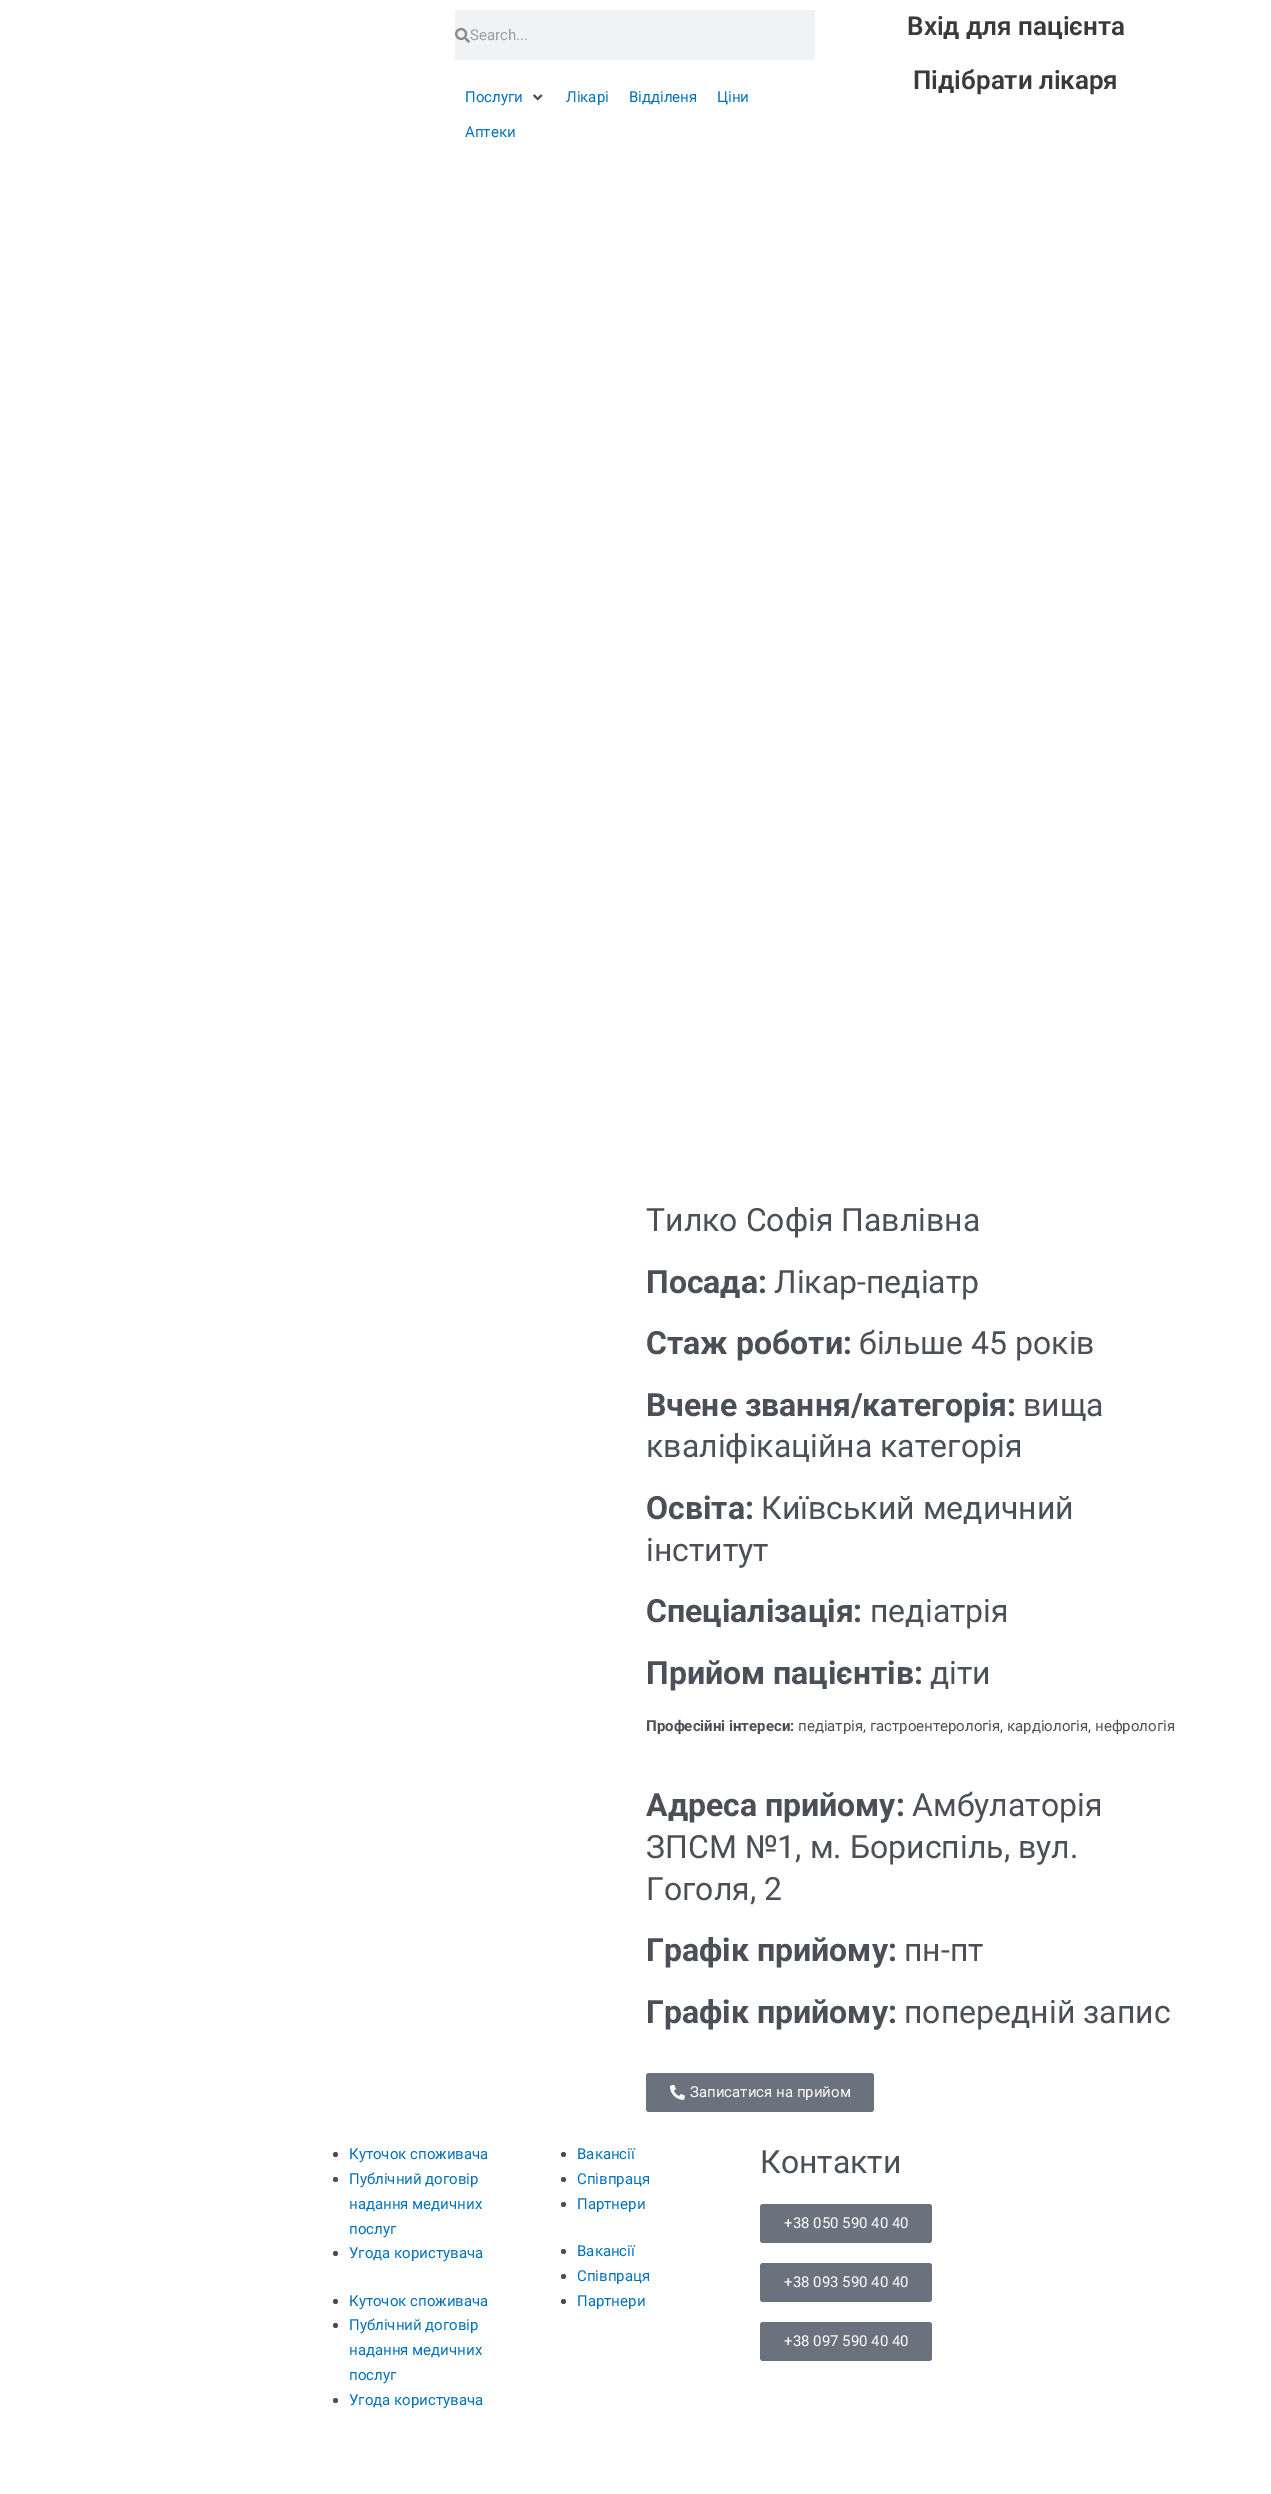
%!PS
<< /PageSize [1271 2494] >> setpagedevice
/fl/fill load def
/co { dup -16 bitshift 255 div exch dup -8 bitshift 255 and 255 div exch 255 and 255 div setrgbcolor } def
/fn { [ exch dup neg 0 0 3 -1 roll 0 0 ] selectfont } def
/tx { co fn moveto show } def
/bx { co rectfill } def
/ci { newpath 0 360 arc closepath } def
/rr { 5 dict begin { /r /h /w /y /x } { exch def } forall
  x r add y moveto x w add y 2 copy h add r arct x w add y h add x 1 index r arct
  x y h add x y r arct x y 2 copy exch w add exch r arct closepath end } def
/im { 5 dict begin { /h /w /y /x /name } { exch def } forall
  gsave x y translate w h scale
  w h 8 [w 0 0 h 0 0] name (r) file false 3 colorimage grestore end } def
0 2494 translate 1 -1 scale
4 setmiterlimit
0 0 1271 2494 16#FFFFFF bx
455 10 360 50 16#F1F2F3 bx
(media/1.raw) 455 27 15 16 im
(media/2.raw) 533 94 10 7 im
16#69727D co
646 2073 228 39 3 rr fl
(media/3.raw) 670 2084 15 16 im
16#4B4F58 co
335.5 2154.5 2.5 ci fl
335.5 2179.5 2.5 ci fl
335.5 2253.5 2.5 ci fl
335.5 2301.5 2.5 ci fl
335.5 2325.5 2.5 ci fl
335.5 2400.5 2.5 ci fl
563.5 2154.5 2.5 ci fl
563.5 2179.5 2.5 ci fl
563.5 2204.5 2.5 ci fl
563.5 2251.5 2.5 ci fl
563.5 2276.5 2.5 ci fl
563.5 2301.5 2.5 ci fl
16#69727D co
760 2204 172 39 3 rr fl
760 2263 172 39 3 rr fl
760 2322 172 39 3 rr fl
(Search...) 470 40 /Roboto-Regular 15 16#9E9E9E tx
(Послуги) 465 102 /Roboto-Regular 15 16#0170B9 tx
(Лікарі) 566 102 /Roboto-Regular 15 16#0170B9 tx
(Відділеня) 629 102 /Roboto-Regular 15 16#0170B9 tx
(Ціни) 717 102 /Roboto-Regular 15 16#0170B9 tx
(Аптеки) 465 137 /Roboto-Regular 15 16#0170B9 tx
(Вхід для пацієнта) 907 35 /Roboto-SemiBold 26 16#3A3A3A tx
(Підібрати лікаря) 913 89 /Roboto-SemiBold 26 16#3A3A3A tx
(Тилко Софія Павлівна) 646 1231 /Roboto-Regular 32 16#4B4F58 tx
(Посада:) 646 1293 /Roboto-Bold 32 16#4B4F58 tx
(Лікар-педіатр) 774 1293 /Roboto-Regular 32 16#4B4F58 tx
(Стаж роботи:) 646 1354 /Roboto-Bold 32 16#4B4F58 tx
(більше 45 років) 859 1354 /Roboto-Regular 32 16#4B4F58 tx
(Вчене звання/категорія:) 646 1416 /Roboto-Bold 32 16#4B4F58 tx
(вища) 1023 1416 /Roboto-Regular 32 16#4B4F58 tx
(кваліфікаційна категорія) 646 1457 /Roboto-Regular 32 16#4B4F58 tx
(Освіта:) 646 1519 /Roboto-Bold 32 16#4B4F58 tx
(Київський медичний) 761 1519 /Roboto-Regular 32 16#4B4F58 tx
(інститут) 646 1561 /Roboto-Regular 32 16#4B4F58 tx
(Спеціалізація:) 646 1622 /Roboto-Bold 32 16#4B4F58 tx
(педіатрія) 870 1622 /Roboto-Regular 32 16#4B4F58 tx
(Прийом пацієнтів:) 646 1684 /Roboto-Bold 32 16#4B4F58 tx
(діти) 930 1684 /Roboto-Regular 32 16#4B4F58 tx
(Професійні інтереси:) 646 1731 /Roboto-Bold 15 16#4B4F58 tx
(педіатрія, гастроентерологія, кардіологія, нефрологія) 798 1731 /Roboto-Regular 15 16#4B4F58 tx
(Адреса прийому:) 646 1816 /Roboto-Bold 32 16#4B4F58 tx
(Амбулаторія) 912 1816 /Roboto-Regular 32 16#4B4F58 tx
(ЗПСМ №1, м. Бориспіль, вул.) 646 1858 /Roboto-Regular 32 16#4B4F58 tx
(Гоголя, 2) 646 1900 /Roboto-Regular 32 16#4B4F58 tx
(Графік прийому:) 646 1961 /Roboto-Bold 32 16#4B4F58 tx
(пн-пт) 904 1961 /Roboto-Regular 32 16#4B4F58 tx
(Графік прийому:) 646 2023 /Roboto-Bold 32 16#4B4F58 tx
(попередній запис) 904 2023 /Roboto-Regular 32 16#4B4F58 tx
(Записатися на прийом) 690 2097 /Roboto-Regular 15 16#FFFFFF tx
(Куточок споживача) 349 2159 /Roboto-Regular 15 16#0170B9 tx
(Публічний договір) 349 2184 /Roboto-Regular 15 16#0170B9 tx
(надання медичних) 349 2209 /Roboto-Regular 15 16#0170B9 tx
(послуг) 349 2234 /Roboto-Regular 15 16#0170B9 tx
(Угода користувача) 349 2258 /Roboto-Regular 15 16#0170B9 tx
(Куточок споживача) 349 2306 /Roboto-Regular 15 16#0170B9 tx
(Публічний договір) 349 2330 /Roboto-Regular 15 16#0170B9 tx
(надання медичних) 349 2355 /Roboto-Regular 15 16#0170B9 tx
(послуг) 349 2380 /Roboto-Regular 15 16#0170B9 tx
(Угода користувача) 349 2405 /Roboto-Regular 15 16#0170B9 tx
(Вакансії) 577 2159 /Roboto-Regular 15 16#0170B9 tx
(Співпраця) 577 2184 /Roboto-Regular 15 16#0170B9 tx
(Партнери) 577 2209 /Roboto-Regular 15 16#0170B9 tx
(Вакансії) 577 2256 /Roboto-Regular 15 16#0170B9 tx
(Співпраця) 577 2281 /Roboto-Regular 15 16#0170B9 tx
(Партнери) 577 2306 /Roboto-Regular 15 16#0170B9 tx
(Контакти) 760 2173 /Roboto-Regular 32 16#4B4F58 tx
(+38 050 590 40 40) 784 2228 /Roboto-Regular 15 16#FFFFFF tx
(+38 093 590 40 40) 784 2287 /Roboto-Regular 15 16#FFFFFF tx
(+38 097 590 40 40) 784 2346 /Roboto-Regular 15 16#FFFFFF tx
showpage
